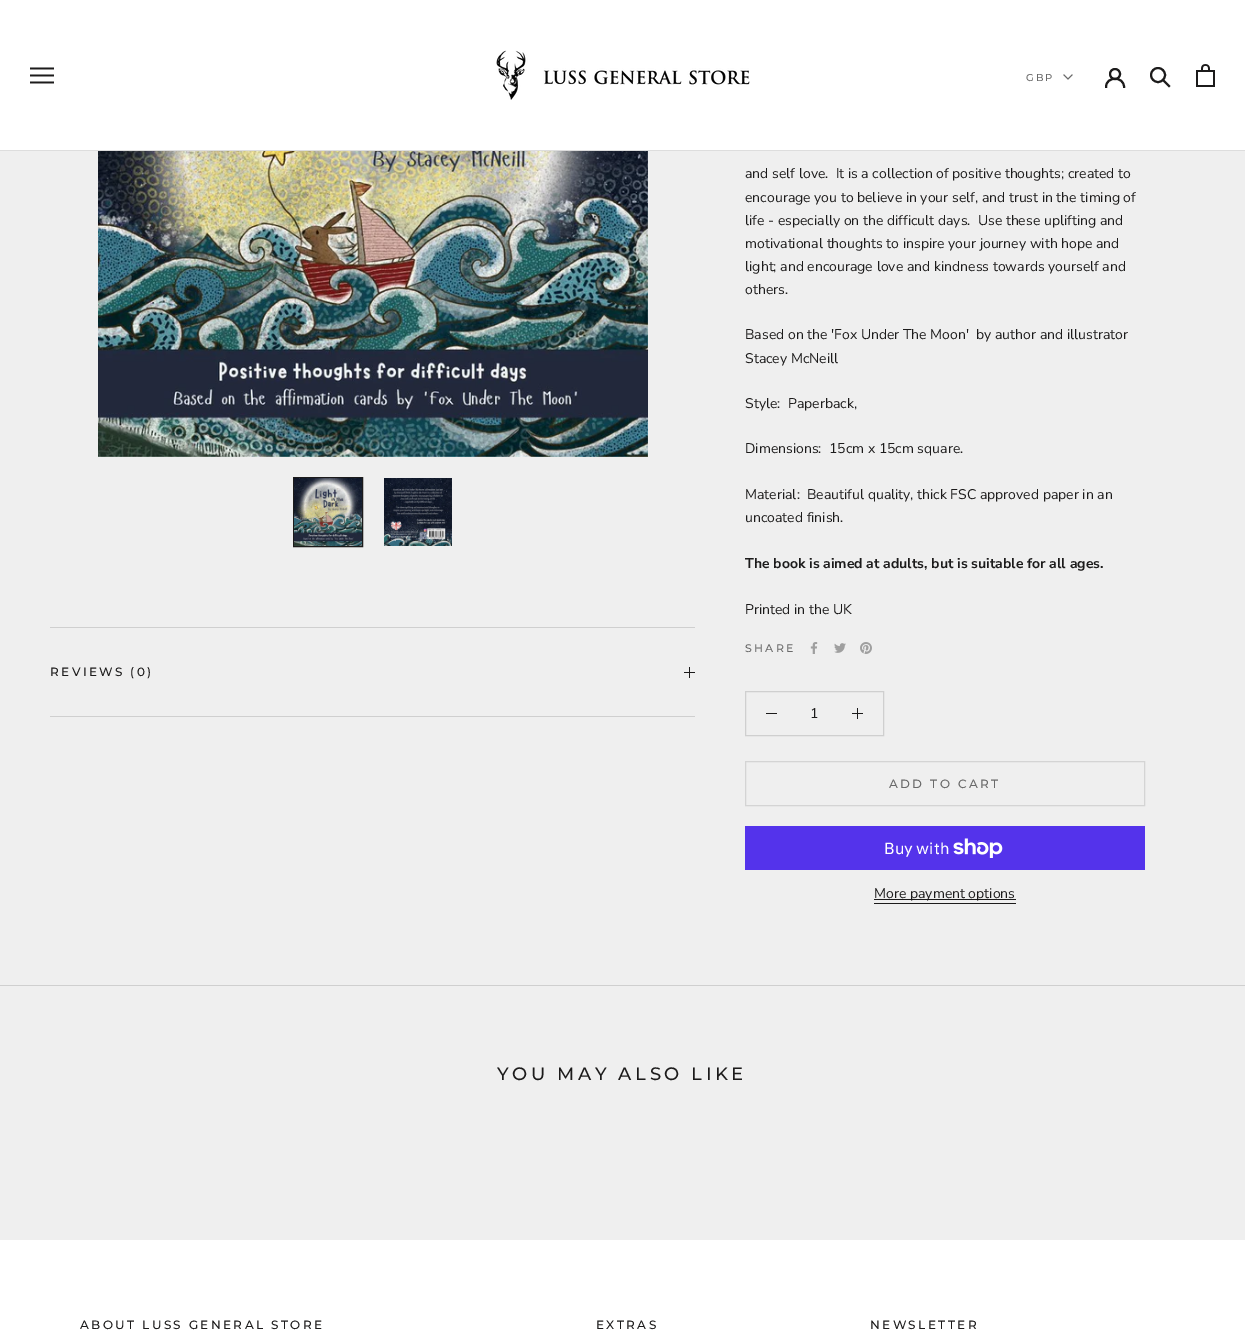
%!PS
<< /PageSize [1245 1336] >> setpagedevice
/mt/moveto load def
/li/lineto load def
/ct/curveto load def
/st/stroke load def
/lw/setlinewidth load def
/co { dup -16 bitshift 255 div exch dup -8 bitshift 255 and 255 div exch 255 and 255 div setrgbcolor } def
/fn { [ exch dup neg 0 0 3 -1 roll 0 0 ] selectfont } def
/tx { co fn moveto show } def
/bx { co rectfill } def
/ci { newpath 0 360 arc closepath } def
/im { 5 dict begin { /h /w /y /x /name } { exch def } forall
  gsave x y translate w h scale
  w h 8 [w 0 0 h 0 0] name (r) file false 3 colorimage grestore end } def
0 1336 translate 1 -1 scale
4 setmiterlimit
0 0 1245 1336 16#EFEFEF bx
0 0 1245 150 16#FFFFFF bx
0 150 1245 1 16#DDDDDD bx
(media/1.raw) 30 67 24 17 im
(media/2.raw) 496 50 254 50 im
16#6A6A6A co
2 setlinecap
1072 75 mt 1068 79 li 1064 75 li st
16#1C1B1B co
2 lw
1106 87 mt 1106 76 1124 76 1124 87 ct st
0 setlinecap
1115 74 5 ci st
2 setlinecap
1169 86 mt 1163.5 80.5 li st
0 setlinecap
1158 75 7 ci st
(media/3.raw) 1196 64 19 23 im
(media/4.raw) 98 151 550 306 im
1 lw
293.5 477.5 69 69 rectstroke
(media/5.raw) 294 478 68 68 im
(media/6.raw) 384 478 68 68 im
(media/7.raw) 810 642 8 12 im
(media/8.raw) 834 643 12 10 im
(media/9.raw) 860 642 12 12 im
16#CFCFCF co
745.5 691.5 138 44 rectstroke
766 713 11 1 16#1C1B1B bx
857 708 1 11 16#1C1B1B bx
852 713 11 1 16#1C1B1B bx
16#D4D4D4 co
745.5 761.5 399 44 rectstroke
745 826 400 44 16#5433EB bx
(media/10.raw) 953 838 50 20 im
874 899 142 1 16#1C1B1B bx
874 903 142 1 16#1C1B1B bx
50 627 645 1 16#CFCFCF bx
50 716 645 1 16#CFCFCF bx
689 667 1 11 16#1C1B1B bx
684 672 11 1 16#1C1B1B bx
0 985 1245 1 16#CFCFCF bx
0 1240 1245 96 16#FFFFFF bx
/Montserrat-Medium 10 fn
16#6A6A6A co
1026 81 mt 2 0 (GBP) ashow
(and self love.  It is a collection of positive thoughts; created to) 745 178 /NunitoSans-Regular 14 16#1C1B1B tx
(encourage you to believe in your self, and trust in the timing of) 745 202 /NunitoSans-Regular 14 16#1C1B1B tx
(life - especially on the difficult days.  Use these uplifting and) 745 225 /NunitoSans-Regular 14 16#1C1B1B tx
(motivational thoughts to inspire your journey with hope and) 745 248 /NunitoSans-Regular 14 16#1C1B1B tx
(light; and encourage love and kindness towards yourself and) 745 271 /NunitoSans-Regular 14 16#1C1B1B tx
(others.) 745 294 /NunitoSans-Regular 14 16#1C1B1B tx
(Based on the 'Fox Under The Moon'  by author and illustrator) 745 339 /NunitoSans-Regular 14 16#1C1B1B tx
(Stacey McNeill) 745 363 /NunitoSans-Regular 14 16#1C1B1B tx
(Style:  Paperback,) 745 408 /NunitoSans-Regular 14 16#1C1B1B tx
(Dimensions:  15cm x 15cm square.) 745 453 /NunitoSans-Regular 14 16#1C1B1B tx
(Material:  Beautiful quality, thick FSC approved paper in an) 745 499 /NunitoSans-Regular 14 16#1C1B1B tx
(uncoated finish.) 745 522 /NunitoSans-Regular 14 16#1C1B1B tx
(The book is aimed at adults, but is suitable for all ages.) 745 568 /NunitoSans-Bold 14 16#1C1B1B tx
(Printed in the UK) 745 614 /NunitoSans-Regular 14 16#1C1B1B tx
/Montserrat-Medium 11 fn
16#6A6A6A co
745 652 mt 2.25 0 (SHARE) ashow
(1) 810 718 /NunitoSans-Regular 14 16#1C1B1B tx
/Montserrat-Medium 12 fn
16#6A6A6A co
889 788 mt 2.4 0 (ADD TO CART) ashow
(Buy with) 884 854 /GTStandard-Regular 16 16#FFFFFF tx
(More payment options) 874 898 /NunitoSans-Regular 14 16#1C1B1B tx
/Montserrat-Medium 12 fn
50 676 mt 2.4 0 (REVIEWS \(0\)) ashow
/Montserrat-Medium 18 fn
497 1080 mt 3.6 0 (YOU MAY ALSO LIKE) ashow
/Montserrat-Medium 12 fn
80 1329 mt 2.4 0 (ABOUT LUSS GENERAL STORE) ashow
596 1329 mt 2.4 0 (EXTRAS) ashow
870 1329 mt 2.4 0 (NEWSLETTER) ashow
showpage
